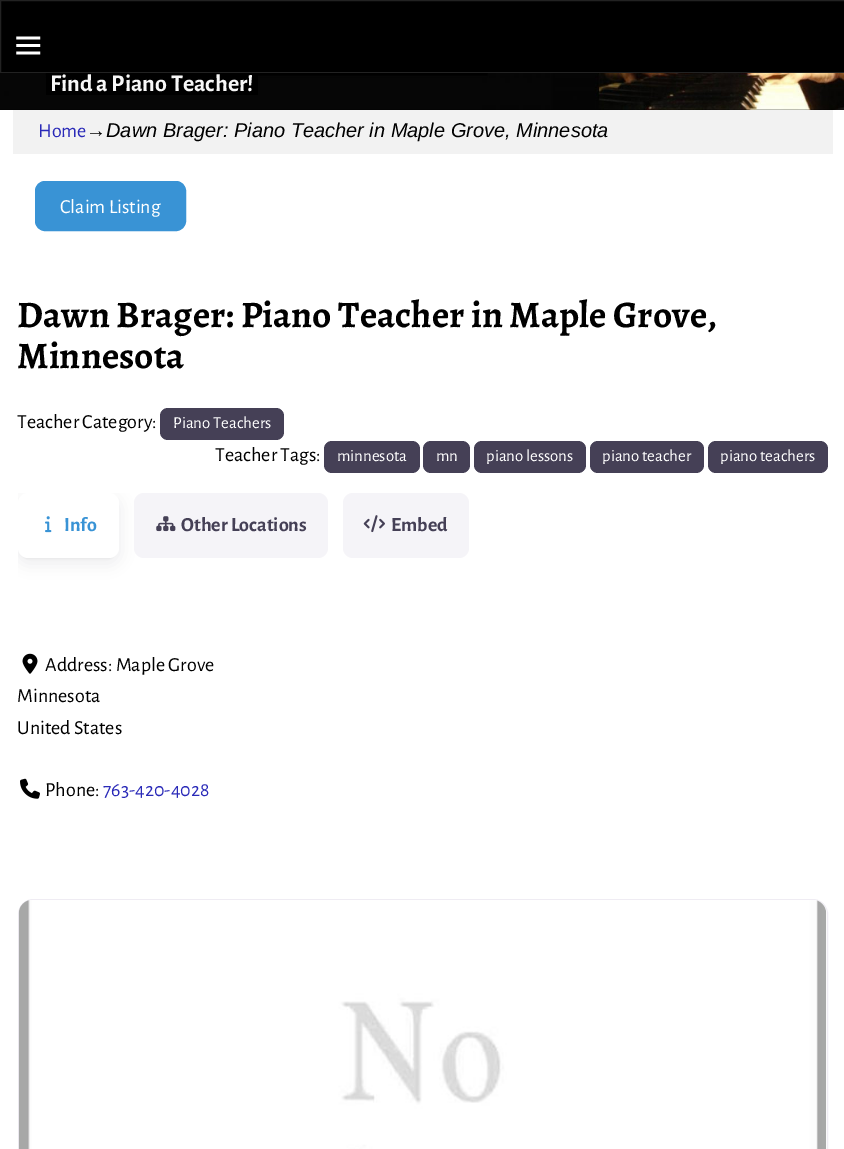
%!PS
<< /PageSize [844 1149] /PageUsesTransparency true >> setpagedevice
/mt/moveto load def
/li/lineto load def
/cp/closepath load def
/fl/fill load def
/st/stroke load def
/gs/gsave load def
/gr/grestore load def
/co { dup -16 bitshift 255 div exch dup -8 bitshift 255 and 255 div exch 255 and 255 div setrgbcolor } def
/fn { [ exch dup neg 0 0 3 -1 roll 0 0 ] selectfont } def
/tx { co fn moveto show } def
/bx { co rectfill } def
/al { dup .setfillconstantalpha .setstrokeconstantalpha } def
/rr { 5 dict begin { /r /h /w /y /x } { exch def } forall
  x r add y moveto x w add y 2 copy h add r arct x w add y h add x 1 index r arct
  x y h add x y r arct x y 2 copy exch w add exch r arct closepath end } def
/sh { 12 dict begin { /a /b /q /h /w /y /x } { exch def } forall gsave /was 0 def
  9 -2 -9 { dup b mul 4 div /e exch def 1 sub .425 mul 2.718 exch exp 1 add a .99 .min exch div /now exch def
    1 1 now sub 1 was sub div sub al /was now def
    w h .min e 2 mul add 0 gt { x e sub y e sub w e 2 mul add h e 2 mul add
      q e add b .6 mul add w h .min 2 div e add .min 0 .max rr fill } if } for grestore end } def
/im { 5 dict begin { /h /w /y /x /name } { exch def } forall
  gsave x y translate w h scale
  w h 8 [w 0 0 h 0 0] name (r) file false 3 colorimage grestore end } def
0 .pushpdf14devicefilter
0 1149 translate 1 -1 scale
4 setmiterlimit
0 0 844 1149 16#FFFFFF bx
16#000000 co
.5 .5 mt 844.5 .5 li 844.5 72.5 li .5 72.5 li cp gs fl gr
16#222222 co
st
(media/1.raw) 16 36 25 19 im
(media/2.raw) 0 73 844 37 im
46 73 212 22 16#000000 bx
13 110 820 44 16#F2F2F2 bx
16#3993D5 co
35.5 181.5 150 49 9.5 rr gs fl gr
st
16#454056 co
160 408 124 32 8 rr fl
324 441 96 32 8 rr fl
423 441 47 32 8 rr fl
474 441 112 32 8 rr fl
590 441 114 32 8 rr fl
708 441 120 32 8 rr fl
gs
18 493 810 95 rectclip
16#1F1B2D co
18 498 101 65 10 7.5 .08 sh
gr
16#1F1B2D co
20 498 96 60 8 1 .08 sh
16#FFFFFF co
18 493 101 65 10 rr fl
(media/3.raw) 45 516 7 17 im
16#F5F4F8 co
134 493 194 65 10 rr fl
(media/4.raw) 156 516 20 16 im
343 493 126 65 10 rr fl
(media/5.raw) 363 515 22 18 im
(media/6.raw) 22 653 16 21 im
(media/7.raw) 20 778 20 21 im
16#EFECF3 co
18.5 899.5 809 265 14.5 rr st
(media/8.raw) 18 900 809 249 im
(Find a Piano Teacher!) 50 91 /AlegreyaSans-Bold 24 16#F7F7F7 tx
(Home) 38 137 /AlegreyaSans-Regular 20 16#2A2AB8 tx
(→) 86 137 /LiberationSans-Regular 20 16#000000 tx
(Dawn Brager: Piano Teacher in Maple Grove, Minnesota) 106 137 /LiberationSans-Italic 20 16#000000 tx
(Claim Listing) 60 213 /AlegreyaSans-Regular 20 16#FFFFFF tx
(Dawn Brager: Piano Teacher in Maple Grove,) 17 327 /Alegreya-Bold 37.5 16#000000 tx
(Minnesota) 17 368 /Alegreya-Bold 37.5 16#000000 tx
(Teacher Category:) 17 428 /AlegreyaSans-Regular 20 16#000000 tx
(Piano Teachers) 173 428 /AlegreyaSans-Regular 16.75 16#FFFFFF tx
(Teacher Tags:) 215 461 /AlegreyaSans-Regular 20 16#000000 tx
(minnesota) 337 461 /AlegreyaSans-Regular 16.75 16#FFFFFF tx
(mn) 436 461 /AlegreyaSans-Regular 16.75 16#FFFFFF tx
(piano lessons) 486 461 /AlegreyaSans-Regular 16.75 16#FFFFFF tx
(piano teacher) 602 461 /AlegreyaSans-Regular 16.75 16#FFFFFF tx
(piano teachers) 720 461 /AlegreyaSans-Regular 16.75 16#FFFFFF tx
(Info) 64 531 /AlegreyaSans-Bold 20 16#3993D5 tx
(Other Locations) 181 531 /AlegreyaSans-Bold 20 16#454056 tx
(Embed) 391 531 /AlegreyaSans-Bold 20 16#454056 tx
(Address: Maple Grove) 45 671 /AlegreyaSans-Regular 20 16#000000 tx
(Minnesota) 17 702 /AlegreyaSans-Regular 20 16#000000 tx
(United States) 17 734 /AlegreyaSans-Regular 20 16#000000 tx
(Phone:) 45 796 /AlegreyaSans-Regular 20 16#000000 tx
(763-420-4028) 103 796 /AlegreyaSans-Regular 20 16#2A2AB8 tx
.poppdf14devicefilter showpage
